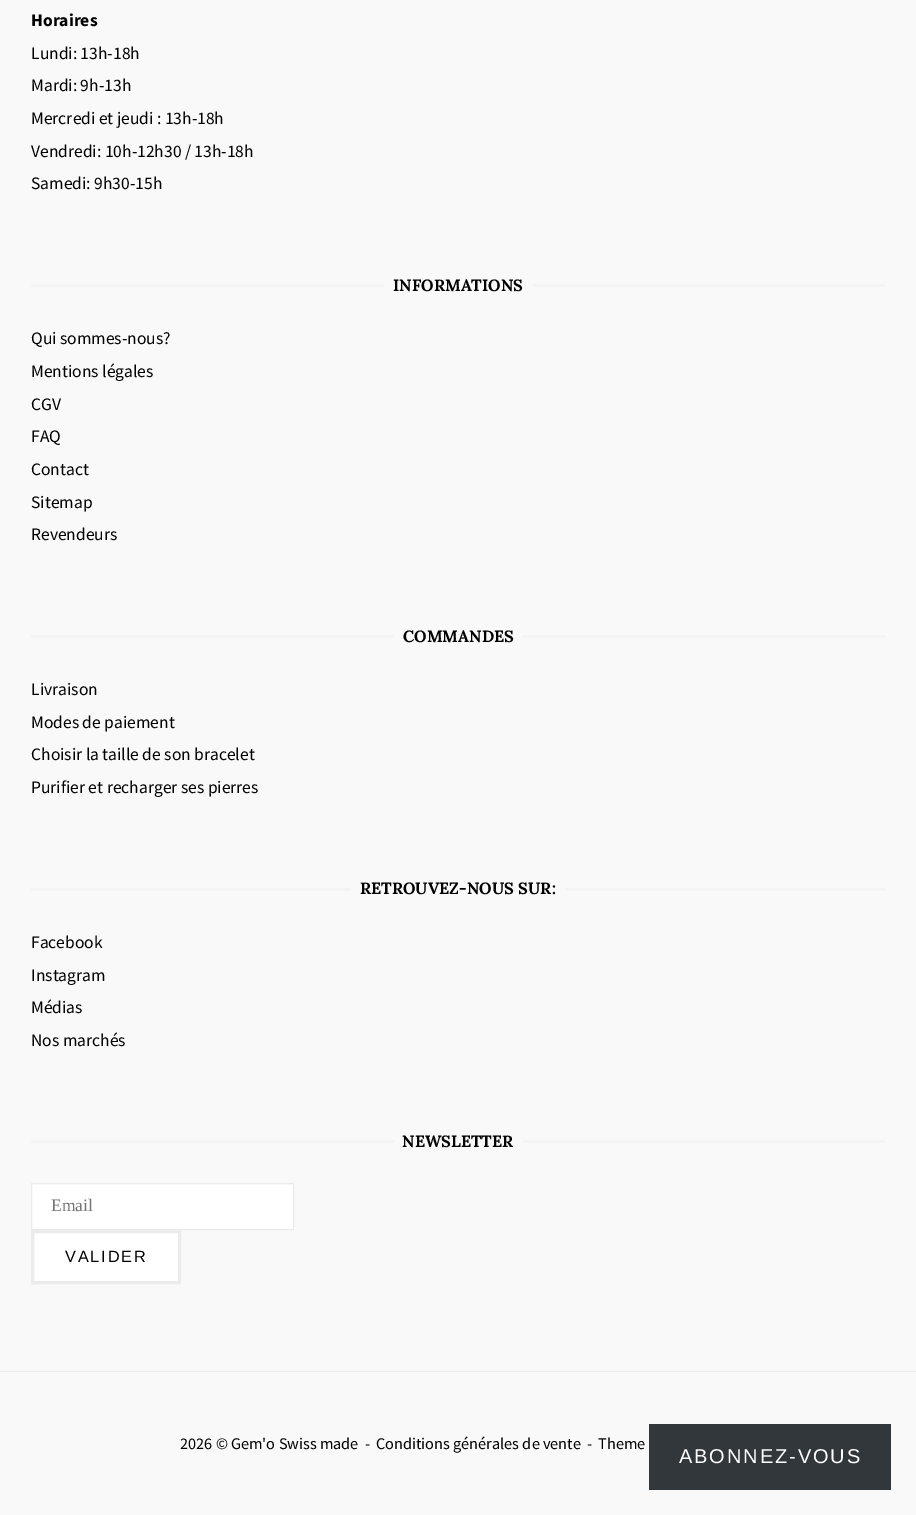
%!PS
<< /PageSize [916 1515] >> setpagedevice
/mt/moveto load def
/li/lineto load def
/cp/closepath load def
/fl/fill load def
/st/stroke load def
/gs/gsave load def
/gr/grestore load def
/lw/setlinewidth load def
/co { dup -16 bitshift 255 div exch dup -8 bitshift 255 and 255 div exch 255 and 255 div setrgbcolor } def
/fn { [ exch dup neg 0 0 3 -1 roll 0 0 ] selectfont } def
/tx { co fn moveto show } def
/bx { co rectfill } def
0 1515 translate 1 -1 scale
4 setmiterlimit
0 0 916 1515 16#F9F9F9 bx
31 284 353 3 16#F4F4F4 bx
533 284 352 3 16#F4F4F4 bx
31 635 363 3 16#F4F4F4 bx
523 635 362 3 16#F4F4F4 bx
31 888 320 3 16#F4F4F4 bx
565 888 320 3 16#F4F4F4 bx
31 1140 363 3 16#F4F4F4 bx
523 1140 362 3 16#F4F4F4 bx
16#FFFFFF co
31.5 1183.5 mt 293.5 1183.5 li 293.5 1229.5 li 31.5 1229.5 li cp gs fl gr
16#EBEBEB co
st
16#FFFFFF co
32.5 1231.5 mt 179.5 1231.5 li 179.5 1282.5 li 32.5 1282.5 li cp gs fl gr
16#EBEBEB co
3 lw
st
0 1371 916 1 16#EBEBEB bx
649 1424 242 66 16#32373C bx
(Horaires) 31 26 /SourceSansPro-Bold 17.5 16#000000 tx
(Lundi: 13h-18h) 31 59 /SourceSansPro-Regular 17.5 16#000000 tx
(Mardi: 9h-13h) 31 91 /SourceSansPro-Regular 17.5 16#000000 tx
(Mercredi et jeudi : 13h-18h) 31 124 /SourceSansPro-Regular 17.5 16#000000 tx
(Vendredi: 10h-12h30 / 13h-18h) 31 157 /SourceSansPro-Regular 17.5 16#000000 tx
(Samedi: 9h30-15h) 31 189 /SourceSansPro-Regular 17.5 16#000000 tx
(INFORMATIONS) 393 291 /Lora-Bold 16.25 16#000000 tx
(Qui sommes-nous?) 31 344 /SourceSansPro-Regular 17.5 16#000000 tx
(Mentions légales) 31 377 /SourceSansPro-Regular 17.5 16#000000 tx
(CGV) 31 410 /SourceSansPro-Regular 17.5 16#000000 tx
(FAQ) 31 442 /SourceSansPro-Regular 17.5 16#000000 tx
(Contact) 31 475 /SourceSansPro-Regular 17.5 16#000000 tx
(Sitemap) 31 508 /SourceSansPro-Regular 17.5 16#000000 tx
(Revendeurs) 31 540 /SourceSansPro-Regular 17.5 16#000000 tx
(COMMANDES) 403 642 /Lora-Bold 16.25 16#000000 tx
(Livraison) 31 695 /SourceSansPro-Regular 17.5 16#000000 tx
(Modes de paiement) 31 728 /SourceSansPro-Regular 17.5 16#000000 tx
(Choisir la taille de son bracelet) 31 760 /SourceSansPro-Regular 17.5 16#000000 tx
(Purifier et recharger ses pierres) 31 793 /SourceSansPro-Regular 17.5 16#000000 tx
(RETROUVEZ-NOUS SUR:) 360 894 /Lora-Bold 16.25 16#000000 tx
(Facebook) 31 948 /SourceSansPro-Regular 17.5 16#000000 tx
(Instagram) 31 981 /SourceSansPro-Regular 17.5 16#000000 tx
(Médias) 31 1013 /SourceSansPro-Regular 17.5 16#000000 tx
(Nos marchés) 31 1046 /SourceSansPro-Regular 17.5 16#000000 tx
(NEWSLETTER) 402 1147 /Lora-Bold 16.25 16#000000 tx
(Email) 51 1211 /LiberationSerif-Regular 17.5 16#757575 tx
/LiberationSans-Regular 16.25 fn
16#000000 co
65 1262 mt 1.9 0 (VALIDER) ashow
(2026 © Gem'o Swiss made) 180 1449 /SourceSansPro-Regular 16.25 16#000000 tx
(-) 365 1449 /SourceSansPro-Regular 16.25 16#000000 tx
(Conditions générales de vente) 376 1449 /SourceSansPro-Regular 16.25 16#000000 tx
(-) 587 1449 /SourceSansPro-Regular 16.25 16#000000 tx
(Theme) 598 1449 /SourceSansPro-Regular 16.25 16#000000 tx
/LiberationSans-Regular 20 fn
16#FFFFFF co
679 1463 mt 1.9 0 (ABONNEZ-VOUS) ashow
showpage
